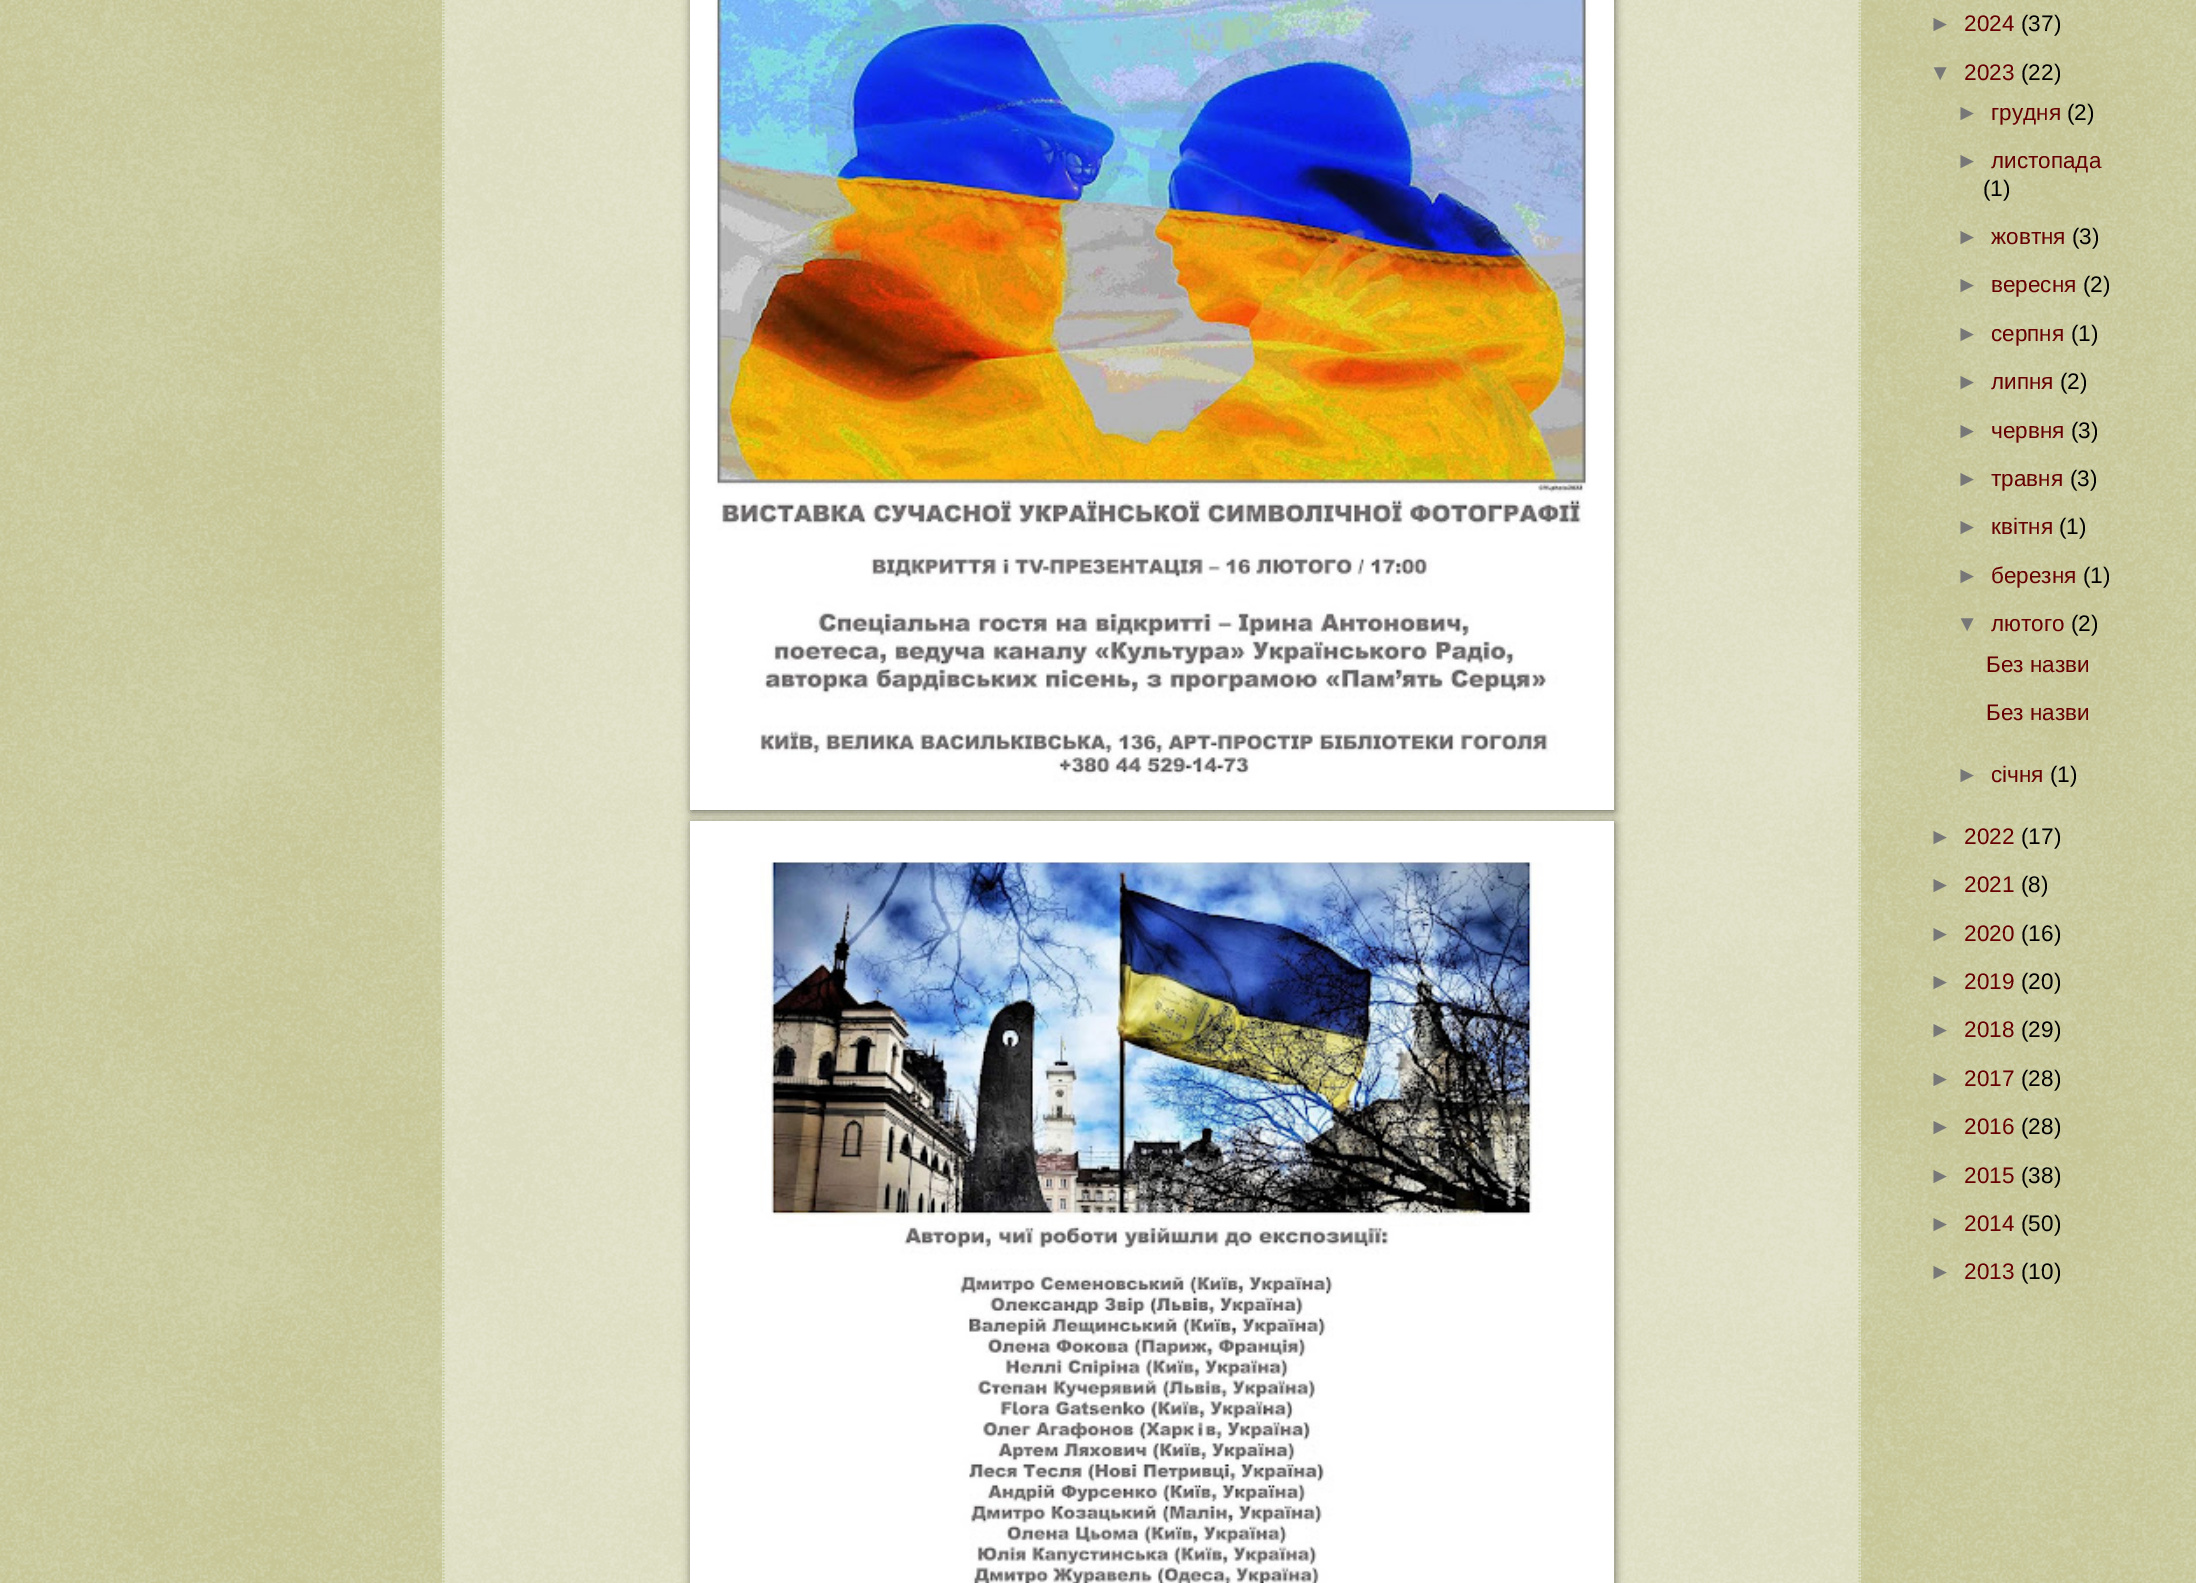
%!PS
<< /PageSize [2196 1583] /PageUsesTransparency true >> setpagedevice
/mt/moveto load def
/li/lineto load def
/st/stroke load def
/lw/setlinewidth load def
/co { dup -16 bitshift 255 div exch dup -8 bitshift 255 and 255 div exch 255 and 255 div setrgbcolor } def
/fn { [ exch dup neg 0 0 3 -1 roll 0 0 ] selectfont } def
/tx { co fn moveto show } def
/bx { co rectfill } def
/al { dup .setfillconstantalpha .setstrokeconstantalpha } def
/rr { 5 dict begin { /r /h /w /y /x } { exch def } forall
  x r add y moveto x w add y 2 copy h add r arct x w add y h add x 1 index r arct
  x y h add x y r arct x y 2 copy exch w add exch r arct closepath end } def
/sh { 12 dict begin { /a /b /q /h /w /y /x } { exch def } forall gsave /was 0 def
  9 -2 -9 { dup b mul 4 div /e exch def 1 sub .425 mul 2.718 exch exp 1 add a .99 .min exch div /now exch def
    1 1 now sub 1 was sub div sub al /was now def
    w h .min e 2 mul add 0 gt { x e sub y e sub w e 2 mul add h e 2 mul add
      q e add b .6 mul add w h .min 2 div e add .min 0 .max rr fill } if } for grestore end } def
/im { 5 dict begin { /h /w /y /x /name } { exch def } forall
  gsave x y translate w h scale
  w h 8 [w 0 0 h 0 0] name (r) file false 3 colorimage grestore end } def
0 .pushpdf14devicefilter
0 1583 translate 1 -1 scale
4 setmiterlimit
0 0 2196 1583 16#9D9D4C bx
(media/1.raw) 0 0 2196 1583 im
0.4 al
442 0 1419 1583 16#FFFFFF bx
1 al
16#C3CC99 co
1.8 lw
[1.75 1.75] 0 setdash
1859.5 -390 mt 1859.5 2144 li st
443.5 -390 mt 443.5 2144 li st
16#000000 co
691 -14 924 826 0 4.5 .5 sh
690 0 924 810 16#FFFFFF bx
(media/2.raw) 715 0 875 782 im
16#000000 co
691 823 924 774 0 4.5 .5 sh
690 821 924 762 16#FFFFFF bx
(media/3.raw) 760 862 783 721 im
(►) 1929 31 /LiberationSans-Regular 22.5 16#777777 tx
(2024) 1964 31 /LiberationSans-Regular 22.5 16#660000 tx
(\(37\)) 2021 31 /LiberationSans-Regular 22.5 16#000000 tx
(▼) 1929 80 /LiberationSans-Regular 22.5 16#777777 tx
(2023) 1964 80 /LiberationSans-Regular 22.5 16#660000 tx
(\(22\)) 2021 80 /LiberationSans-Regular 22.5 16#000000 tx
(►) 1956 120 /LiberationSans-Regular 22.5 16#777777 tx
(грудня) 1991 120 /LiberationSans-Regular 22.5 16#660000 tx
(\(2\)) 2067 120 /LiberationSans-Regular 22.5 16#000000 tx
(►) 1956 168 /LiberationSans-Regular 22.5 16#777777 tx
(листопада) 1991 168 /LiberationSans-Regular 22.5 16#660000 tx
(\(1\)) 1983 196 /LiberationSans-Regular 22.5 16#000000 tx
(►) 1956 244 /LiberationSans-Regular 22.5 16#777777 tx
(жовтня) 1991 244 /LiberationSans-Regular 22.5 16#660000 tx
(\(3\)) 2072 244 /LiberationSans-Regular 22.5 16#000000 tx
(►) 1956 292 /LiberationSans-Regular 22.5 16#777777 tx
(вересня) 1991 292 /LiberationSans-Regular 22.5 16#660000 tx
(\(2\)) 2083 292 /LiberationSans-Regular 22.5 16#000000 tx
(►) 1956 341 /LiberationSans-Regular 22.5 16#777777 tx
(серпня) 1991 341 /LiberationSans-Regular 22.5 16#660000 tx
(\(1\)) 2071 341 /LiberationSans-Regular 22.5 16#000000 tx
(►) 1956 389 /LiberationSans-Regular 22.5 16#777777 tx
(липня) 1991 389 /LiberationSans-Regular 22.5 16#660000 tx
(\(2\)) 2060 389 /LiberationSans-Regular 22.5 16#000000 tx
(►) 1956 438 /LiberationSans-Regular 22.5 16#777777 tx
(червня) 1991 438 /LiberationSans-Regular 22.5 16#660000 tx
(\(3\)) 2071 438 /LiberationSans-Regular 22.5 16#000000 tx
(►) 1956 486 /LiberationSans-Regular 22.5 16#777777 tx
(травня) 1991 486 /LiberationSans-Regular 22.5 16#660000 tx
(\(3\)) 2070 486 /LiberationSans-Regular 22.5 16#000000 tx
(►) 1956 534 /LiberationSans-Regular 22.5 16#777777 tx
(квітня) 1991 534 /LiberationSans-Regular 22.5 16#660000 tx
(\(1\)) 2059 534 /LiberationSans-Regular 22.5 16#000000 tx
(►) 1956 583 /LiberationSans-Regular 22.5 16#777777 tx
(березня) 1991 583 /LiberationSans-Regular 22.5 16#660000 tx
(\(1\)) 2083 583 /LiberationSans-Regular 22.5 16#000000 tx
(▼) 1956 631 /LiberationSans-Regular 22.5 16#777777 tx
(лютого) 1991 631 /LiberationSans-Regular 22.5 16#660000 tx
(\(2\)) 2071 631 /LiberationSans-Regular 22.5 16#000000 tx
(Без назви) 1986 672 /LiberationSans-Regular 22.5 16#660000 tx
(Без назви) 1986 720 /LiberationSans-Regular 22.5 16#660000 tx
(►) 1956 782 /LiberationSans-Regular 22.5 16#777777 tx
(січня) 1991 782 /LiberationSans-Regular 22.5 16#660000 tx
(\(1\)) 2050 782 /LiberationSans-Regular 22.5 16#000000 tx
(►) 1929 844 /LiberationSans-Regular 22.5 16#777777 tx
(2022) 1964 844 /LiberationSans-Regular 22.5 16#660000 tx
(\(17\)) 2021 844 /LiberationSans-Regular 22.5 16#000000 tx
(►) 1929 892 /LiberationSans-Regular 22.5 16#777777 tx
(2021) 1964 892 /LiberationSans-Regular 22.5 16#660000 tx
(\(8\)) 2021 892 /LiberationSans-Regular 22.5 16#000000 tx
(►) 1929 941 /LiberationSans-Regular 22.5 16#777777 tx
(2020) 1964 941 /LiberationSans-Regular 22.5 16#660000 tx
(\(16\)) 2021 941 /LiberationSans-Regular 22.5 16#000000 tx
(►) 1929 989 /LiberationSans-Regular 22.5 16#777777 tx
(2019) 1964 989 /LiberationSans-Regular 22.5 16#660000 tx
(\(20\)) 2021 989 /LiberationSans-Regular 22.5 16#000000 tx
(►) 1929 1037 /LiberationSans-Regular 22.5 16#777777 tx
(2018) 1964 1037 /LiberationSans-Regular 22.5 16#660000 tx
(\(29\)) 2021 1037 /LiberationSans-Regular 22.5 16#000000 tx
(►) 1929 1086 /LiberationSans-Regular 22.5 16#777777 tx
(2017) 1964 1086 /LiberationSans-Regular 22.5 16#660000 tx
(\(28\)) 2021 1086 /LiberationSans-Regular 22.5 16#000000 tx
(►) 1929 1134 /LiberationSans-Regular 22.5 16#777777 tx
(2016) 1964 1134 /LiberationSans-Regular 22.5 16#660000 tx
(\(28\)) 2021 1134 /LiberationSans-Regular 22.5 16#000000 tx
(►) 1929 1183 /LiberationSans-Regular 22.5 16#777777 tx
(2015) 1964 1183 /LiberationSans-Regular 22.5 16#660000 tx
(\(38\)) 2021 1183 /LiberationSans-Regular 22.5 16#000000 tx
(►) 1929 1231 /LiberationSans-Regular 22.5 16#777777 tx
(2014) 1964 1231 /LiberationSans-Regular 22.5 16#660000 tx
(\(50\)) 2021 1231 /LiberationSans-Regular 22.5 16#000000 tx
(►) 1929 1279 /LiberationSans-Regular 22.5 16#777777 tx
(2013) 1964 1279 /LiberationSans-Regular 22.5 16#660000 tx
(\(10\)) 2021 1279 /LiberationSans-Regular 22.5 16#000000 tx
.poppdf14devicefilter showpage
